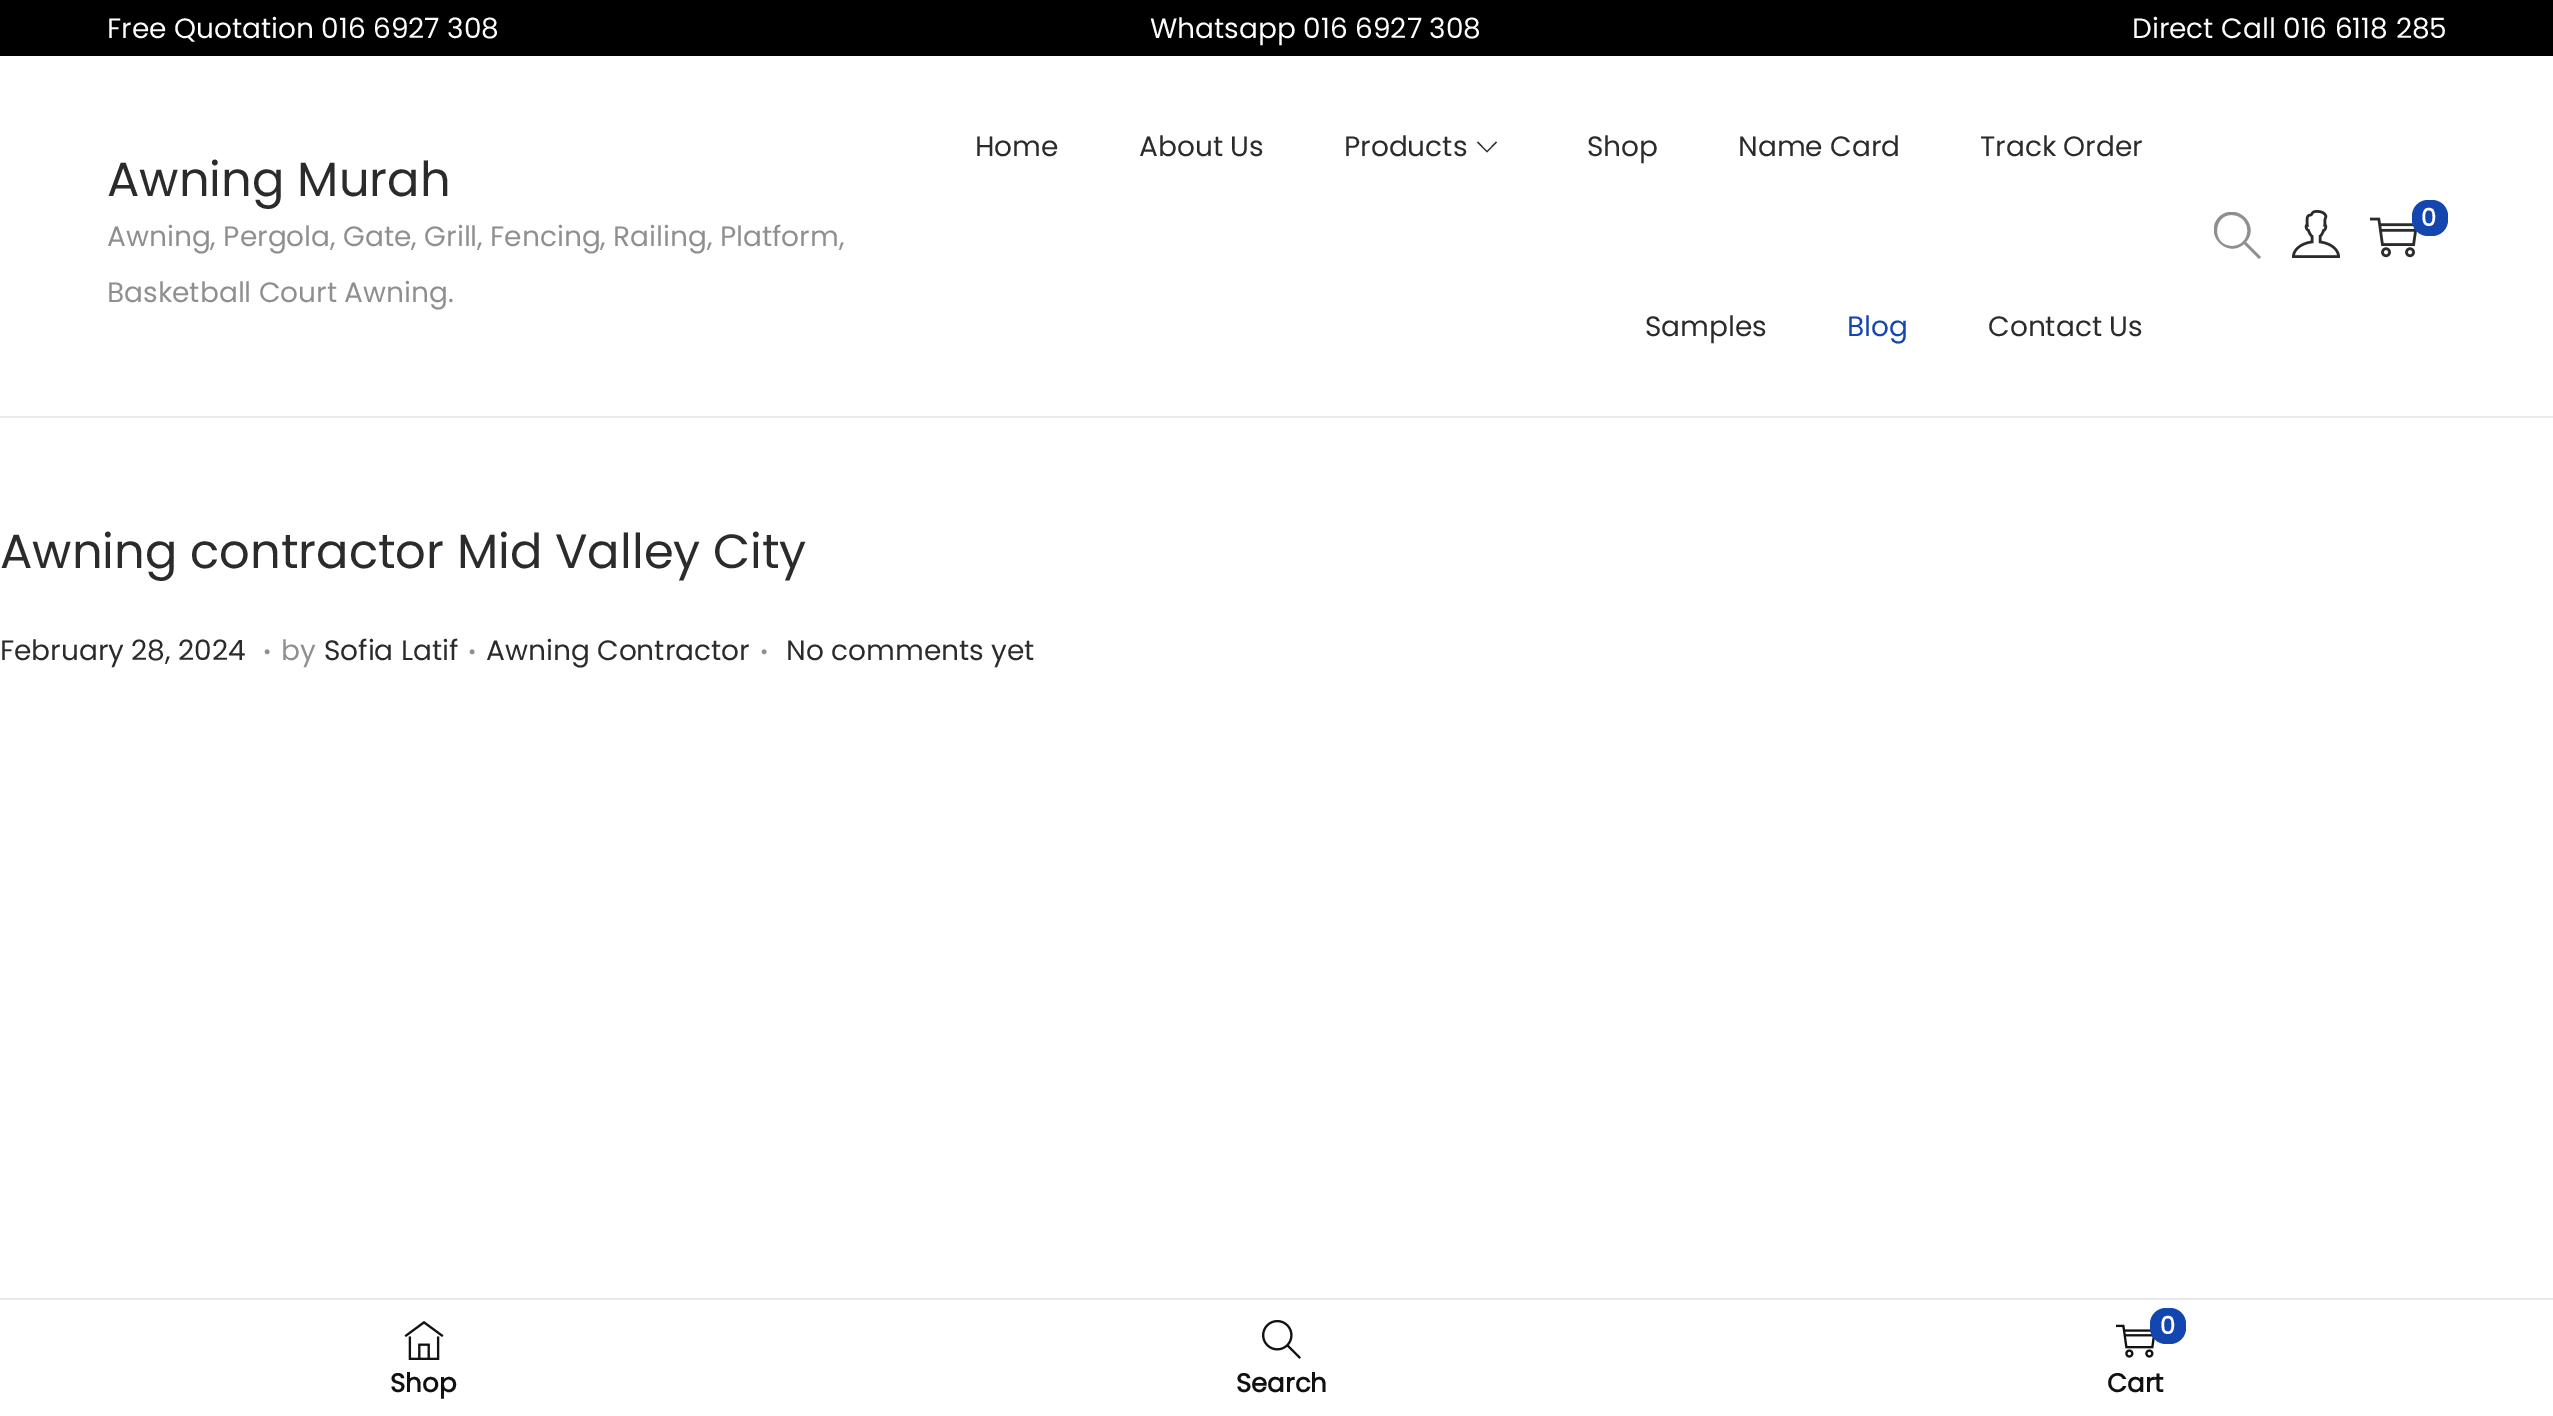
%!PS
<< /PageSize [2553 1416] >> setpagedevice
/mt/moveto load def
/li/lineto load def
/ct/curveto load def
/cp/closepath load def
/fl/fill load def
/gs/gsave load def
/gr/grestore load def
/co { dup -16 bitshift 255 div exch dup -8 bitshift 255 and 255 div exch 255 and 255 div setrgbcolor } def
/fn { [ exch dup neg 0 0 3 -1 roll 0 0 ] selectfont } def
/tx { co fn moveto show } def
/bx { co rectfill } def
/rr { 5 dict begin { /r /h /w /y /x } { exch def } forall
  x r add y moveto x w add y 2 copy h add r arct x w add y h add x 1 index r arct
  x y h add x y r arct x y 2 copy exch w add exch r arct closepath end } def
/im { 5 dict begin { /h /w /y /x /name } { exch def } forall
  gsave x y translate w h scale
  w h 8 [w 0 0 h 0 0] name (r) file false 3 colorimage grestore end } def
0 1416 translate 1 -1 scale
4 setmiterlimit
0 0 2553 1416 16#FFFFFF bx
0 0 2553 56 16#000000 bx
0 416 2553 2 16#EAEAEA bx
16#2B2B2B co
1497 142.5 mt 1487 152.5 li 1477 142.5 li 1478 141.5 li 1487 151 li 1496 141.5 li cp fl
gs
2214 212 48 48 rectclip
16#8F8F8F co
2261 257 mt 2246 242 li 2261 225 2236 201 2219 217 ct 2203 234 2227 259 2244 244 ct 2259 259 li cp 2232 246 mt 2211 246 2213 214 2232 215 ct 2253 216 2252 246 2232 246 ct cp fl
gr
(media/1.raw) 2292 210 48 48 im
(media/2.raw) 2370 217 47 41 im
16#1346AF co
2412 200 36 36 16 rr fl
0 1298 2553 2 16#EAEAEA bx
(media/3.raw) 404 1321 40 39 im
(media/4.raw) 1262 1320 39 39 im
(media/5.raw) 2116 1324 39 34 im
16#1346AF co
2150 1308 36 36 16 rr fl
(Free Quotation 016 6927 308) 107 38 /Poppins-Regular 28 16#FFFFFF tx
(Whatsapp 016 6927 308) 1150 38 /Poppins-Regular 28 16#FFFFFF tx
(Direct Call 016 6118 285) 2132 38 /Poppins-Regular 28 16#FFFFFF tx
(Awning Murah) 107 196 /Poppins-Regular 48 16#2B2B2B tx
(Awning, Pergola, Gate, Grill, Fencing, Railing, Platform,) 107 246 /Poppins-Regular 28 16#8F8F8F tx
(Basketball Court Awning.) 107 302 /Poppins-Regular 28 16#8F8F8F tx
(Home) 975 156 /Poppins-Regular 28 16#2B2B2B tx
(About Us) 1139 156 /Poppins-Regular 28 16#2B2B2B tx
(Products) 1344 156 /Poppins-Regular 28 16#2B2B2B tx
(Shop) 1587 156 /Poppins-Regular 28 16#2B2B2B tx
(Name Card) 1738 156 /Poppins-Regular 28 16#2B2B2B tx
(Track Order) 1980 156 /Poppins-Regular 28 16#2B2B2B tx
(Samples) 1645 336 /Poppins-Regular 28 16#2B2B2B tx
(Blog) 1847 336 /Poppins-Regular 28 16#1346AF tx
(Contact Us) 1988 336 /Poppins-Regular 28 16#2B2B2B tx
(0) 2421 226 /Poppins-Bold 24 16#FFFFFF tx
(Awning contractor Mid Valley City) 0 568 /Poppins-Regular 48 16#2B2B2B tx
(February 28, 2024) 0 660 /Poppins-Regular 28 16#2B2B2B tx
(.) 263 654 /Poppins-Regular 40 16#8F8F8F tx
(by) 281 660 /Poppins-Regular 28 16#8F8F8F tx
(Sofia Latif) 324 660 /Poppins-Regular 28 16#2B2B2B tx
(.) 468 654 /Poppins-Regular 40 16#8F8F8F tx
(Awning Contractor) 486 660 /Poppins-Regular 28 16#2B2B2B tx
(.) 760 654 /Poppins-Regular 40 16#8F8F8F tx
(No comments yet) 786 660 /Poppins-Regular 28 16#2B2B2B tx
(Shop) 390 1392 /Poppins-Bold 26 16#111111 tx
(Search) 1236 1392 /Poppins-Bold 26 16#111111 tx
(0) 2160 1334 /Poppins-Bold 24 16#FFFFFF tx
(Cart) 2107 1392 /Poppins-Bold 26 16#111111 tx
showpage
